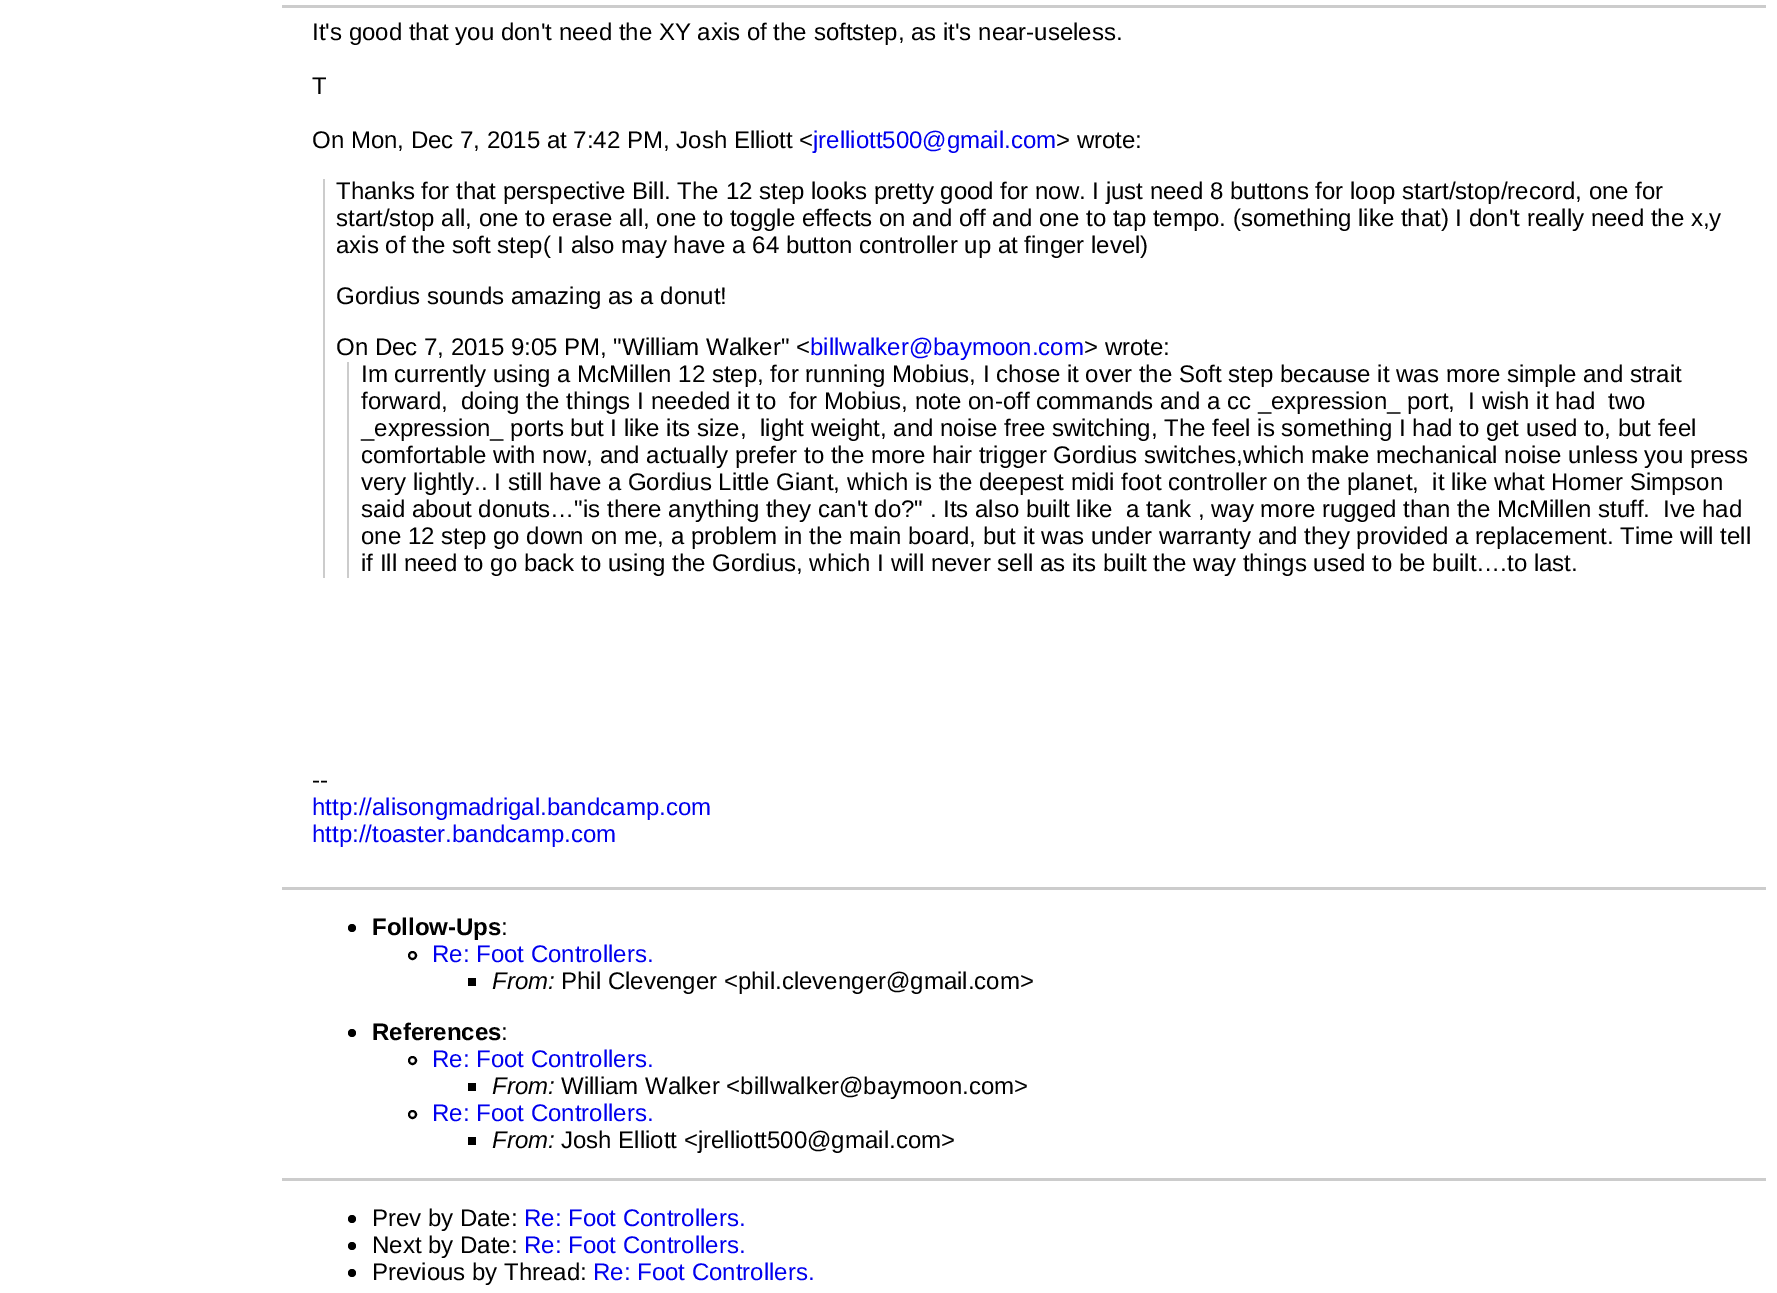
%!PS
<< /PageSize [1777 1293] >> setpagedevice
/fl/fill load def
/st/stroke load def
/lw/setlinewidth load def
/co { dup -16 bitshift 255 div exch dup -8 bitshift 255 and 255 div exch 255 and 255 div setrgbcolor } def
/fn { [ exch dup neg 0 0 3 -1 roll 0 0 ] selectfont } def
/tx { co fn moveto show } def
/bx { co rectfill } def
/ci { newpath 0 360 arc closepath } def
0 1293 translate 1 -1 scale
4 setmiterlimit
0 0 1777 1293 16#FFFFFF bx
282 5 1484 3 16#CCCCCC bx
323 179 2 399 16#CCCCCC bx
347 362 2 216 16#CCCCCC bx
282 887 1484 3 16#CCCCCC bx
16#000000 co
352 928 4 ci fl
2 lw
412.5 955.5 3.5 ci st
468 978 8 8 16#000000 bx
352 1033 4 ci fl
412.5 1060.5 3.5 ci st
468 1083 8 8 16#000000 bx
412.5 1114.5 3.5 ci st
468 1137 8 8 16#000000 bx
282 1178 1484 3 16#CCCCCC bx
16#000000 co
352 1219 4 ci fl
352 1246 4 ci fl
352 1273 4 ci fl
(It's good that you don't need the XY axis of the softstep, as it's near-useless.) 312 40 /LiberationSans-Regular 24 16#000000 tx
(T) 312 94 /LiberationSans-Regular 24 16#000000 tx
(On Mon, Dec 7, 2015 at 7:42 PM, Josh Elliott <) 312 148 /LiberationSans-Regular 24 16#000000 tx
(jrelliott500@gmail.com) 813 148 /LiberationSans-Regular 24 16#0000EE tx
(> wrote:) 1056 148 /LiberationSans-Regular 24 16#000000 tx
(Thanks for that perspective Bill. The 12 step looks pretty good for now. I just need 8 buttons for loop start/stop/record, one for) 336 199 /LiberationSans-Regular 24 16#000000 tx
(start/stop all, one to erase all, one to toggle effects on and off and one to tap tempo. \(something like that\) I don't really need the x,y) 336 226 /LiberationSans-Regular 24 16#000000 tx
(axis of the soft step\( I also may have a 64 button controller up at finger level\)) 336 253 /LiberationSans-Regular 24 16#000000 tx
(Gordius sounds amazing as a donut!) 336 304 /LiberationSans-Regular 24 16#000000 tx
(On Dec 7, 2015 9:05 PM, "William Walker" <) 336 355 /LiberationSans-Regular 24 16#000000 tx
(billwalker@baymoon.com) 810 355 /LiberationSans-Regular 24 16#0000EE tx
(> wrote:) 1084 355 /LiberationSans-Regular 24 16#000000 tx
(Im currently using a McMillen 12 step, for running Mobius, I chose it over the Soft step because it was more simple and strait) 361 382 /LiberationSans-Regular 24 16#000000 tx
(forward,  doing the things I needed it to  for Mobius, note on-off commands and a cc _expression_ port,  I wish it had  two) 361 409 /LiberationSans-Regular 24 16#000000 tx
(_expression_ ports but I like its size,  light weight, and noise free switching, The feel is something I had to get used to, but feel) 361 436 /LiberationSans-Regular 24 16#000000 tx
(comfortable with now, and actually prefer to the more hair trigger Gordius switches,which make mechanical noise unless you press) 361 463 /LiberationSans-Regular 24 16#000000 tx
(very lightly.. I still have a Gordius Little Giant, which is the deepest midi foot controller on the planet,  it like what Homer Simpson) 361 490 /LiberationSans-Regular 24 16#000000 tx
(said about donuts…"is there anything they can't do?" . Its also built like  a tank , way more rugged than the McMillen stuff.  Ive had) 361 517 /LiberationSans-Regular 24 16#000000 tx
(one 12 step go down on me, a problem in the main board, but it was under warranty and they provided a replacement. Time will tell) 361 544 /LiberationSans-Regular 24 16#000000 tx
(if Ill need to go back to using the Gordius, which I will never sell as its built the way things used to be built….to last.) 361 571 /LiberationSans-Regular 24 16#000000 tx
(--) 312 788 /LiberationSans-Regular 24 16#000000 tx
(http://alisongmadrigal.bandcamp.com) 312 815 /LiberationSans-Regular 24 16#0000EE tx
(http://toaster.bandcamp.com) 312 842 /LiberationSans-Regular 24 16#0000EE tx
(Follow-Ups) 372 935 /LiberationSans-Bold 24 16#000000 tx
(:) 501 935 /LiberationSans-Regular 24 16#000000 tx
(Re: Foot Controllers.) 432 962 /LiberationSans-Regular 24 16#0000EE tx
(From:) 492 989 /LiberationSans-Italic 24 16#000000 tx
(Phil Clevenger <phil.clevenger@gmail.com>) 561 989 /LiberationSans-Regular 24 16#000000 tx
(References) 372 1040 /LiberationSans-Bold 24 16#000000 tx
(:) 501 1040 /LiberationSans-Regular 24 16#000000 tx
(Re: Foot Controllers.) 432 1067 /LiberationSans-Regular 24 16#0000EE tx
(From:) 492 1094 /LiberationSans-Italic 24 16#000000 tx
(William Walker <billwalker@baymoon.com>) 561 1094 /LiberationSans-Regular 24 16#000000 tx
(Re: Foot Controllers.) 432 1121 /LiberationSans-Regular 24 16#0000EE tx
(From:) 492 1148 /LiberationSans-Italic 24 16#000000 tx
(Josh Elliott <jrelliott500@gmail.com>) 561 1148 /LiberationSans-Regular 24 16#000000 tx
(Prev by Date:) 372 1226 /LiberationSans-Regular 24 16#000000 tx
(Re: Foot Controllers.) 524 1226 /LiberationSans-Regular 24 16#0000EE tx
(Next by Date:) 372 1253 /LiberationSans-Regular 24 16#000000 tx
(Re: Foot Controllers.) 524 1253 /LiberationSans-Regular 24 16#0000EE tx
(Previous by Thread:) 372 1280 /LiberationSans-Regular 24 16#000000 tx
(Re: Foot Controllers.) 593 1280 /LiberationSans-Regular 24 16#0000EE tx
showpage
